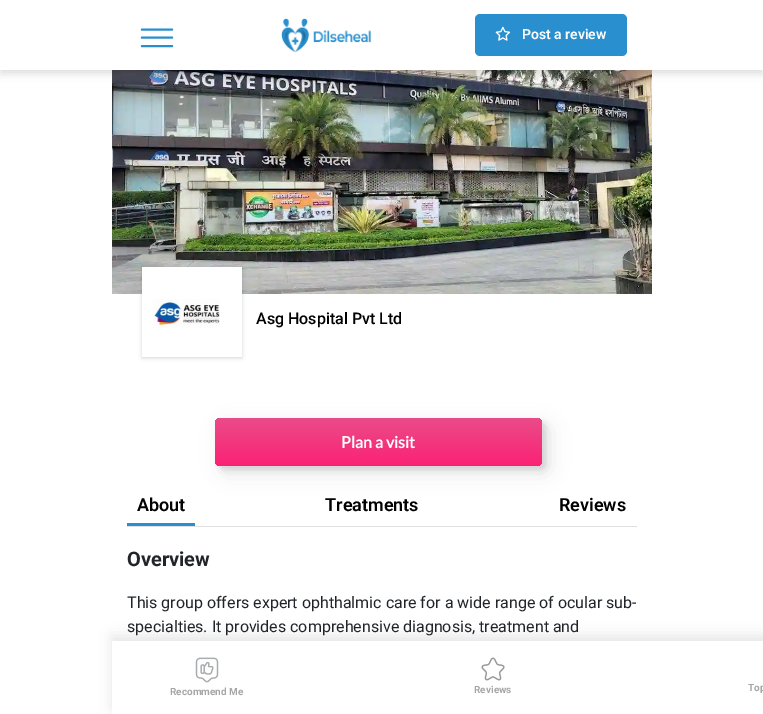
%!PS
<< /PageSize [763 714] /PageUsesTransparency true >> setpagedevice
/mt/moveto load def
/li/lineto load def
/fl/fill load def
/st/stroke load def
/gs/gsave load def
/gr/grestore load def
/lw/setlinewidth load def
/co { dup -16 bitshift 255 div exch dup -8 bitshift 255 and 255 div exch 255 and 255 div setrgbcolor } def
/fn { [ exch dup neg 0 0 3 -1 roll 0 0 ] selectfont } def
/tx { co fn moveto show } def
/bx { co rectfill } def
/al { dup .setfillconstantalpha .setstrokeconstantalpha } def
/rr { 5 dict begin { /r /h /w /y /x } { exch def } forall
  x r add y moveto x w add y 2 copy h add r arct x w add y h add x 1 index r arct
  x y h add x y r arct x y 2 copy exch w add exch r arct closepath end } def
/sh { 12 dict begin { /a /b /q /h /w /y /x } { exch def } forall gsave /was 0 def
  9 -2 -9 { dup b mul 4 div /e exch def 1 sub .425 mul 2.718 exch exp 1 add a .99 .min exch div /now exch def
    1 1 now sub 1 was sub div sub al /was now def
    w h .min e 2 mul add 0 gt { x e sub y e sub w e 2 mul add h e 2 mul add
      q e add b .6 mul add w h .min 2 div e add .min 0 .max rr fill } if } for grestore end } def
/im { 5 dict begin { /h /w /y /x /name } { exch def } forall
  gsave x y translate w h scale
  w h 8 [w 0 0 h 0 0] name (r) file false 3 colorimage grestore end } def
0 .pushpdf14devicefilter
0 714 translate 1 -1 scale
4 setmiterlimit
0 0 763 714 16#FFFFFF bx
(media/3.raw) 112 70 540 224 im
16#000000 co
0 4 763 70 0 4 .12 sh
0 0 763 70 16#FFFFFF bx
16#298ECC co
2.1 lw
1 setlinecap
142 29.5 mt 172 29.5 li 142 37.5 mt 172 37.5 li 142 46 mt 172 46 li st
(media/1.raw) 281 18 90 34 im
16#298FCE co
475 14 152 42 5 rr fl
(media/2.raw) 495 26 16 15 im
16#000000 co
142 268 100 90 0 2 .16 sh
142 267 100 90 16#FFFFFF bx
(media/4.raw) 152 299 68 29 im
16#000000 co
219 422 327 48 5 2.5 .1 sh
222 425 327 48 5 10 .1 sh
gs 215 418 327 48 5 rr clip newpath
<< /ShadingType 2 /ColorSpace /DeviceRGB /Coords [379 466 379 418] /Extend [true true] /Function << /FunctionType 2 /Domain [0 1] /C0 [.984 .129 .459] /C1 [.918 .298 .537] /N 1 >> >> shfill gr
127 526 510 1 16#DFDFDF bx
127 523 68 3 16#298FCE bx
16#000000 co
112 636 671 73 0 6.5 .1 sh
112 641 651 73 16#FFFFFF bx
(media/5.raw) 195 657 24 26 im
(media/6.raw) 481 657 24 24 im
(Post a review) 522 39 /Roboto-SemiBold 14 16#FFFFFF tx
(Asg Hospital Pvt Ltd) 256 324 /Roboto-Medium 16 16#000000 tx
(Plan a visit) 341 448 /Lato-Bold 16 16#FFFFFF tx
(About) 137 511 /Roboto-SemiBold 18 16#000000 tx
(Treatments) 325 511 /Roboto-SemiBold 18 16#000000 tx
(Reviews) 559 511 /Roboto-SemiBold 18 16#000000 tx
(Overview) 127 566 /Roboto-Bold 20 16#212529 tx
(This group offers expert ophthalmic care for a wide range of ocular sub-) 127 608 /Roboto-Regular 16 16#212529 tx
(specialties. It provides comprehensive diagnosis, treatment and) 127 632 /Roboto-Regular 16 16#212529 tx
(Recommend Me) 170 695 /Roboto-Bold 10 16#A5A5A5 tx
(Reviews) 474 693 /Roboto-Bold 10 16#A5A5A5 tx
(Top) 748 691 /Roboto-Bold 10 16#A5A5A5 tx
.poppdf14devicefilter showpage
